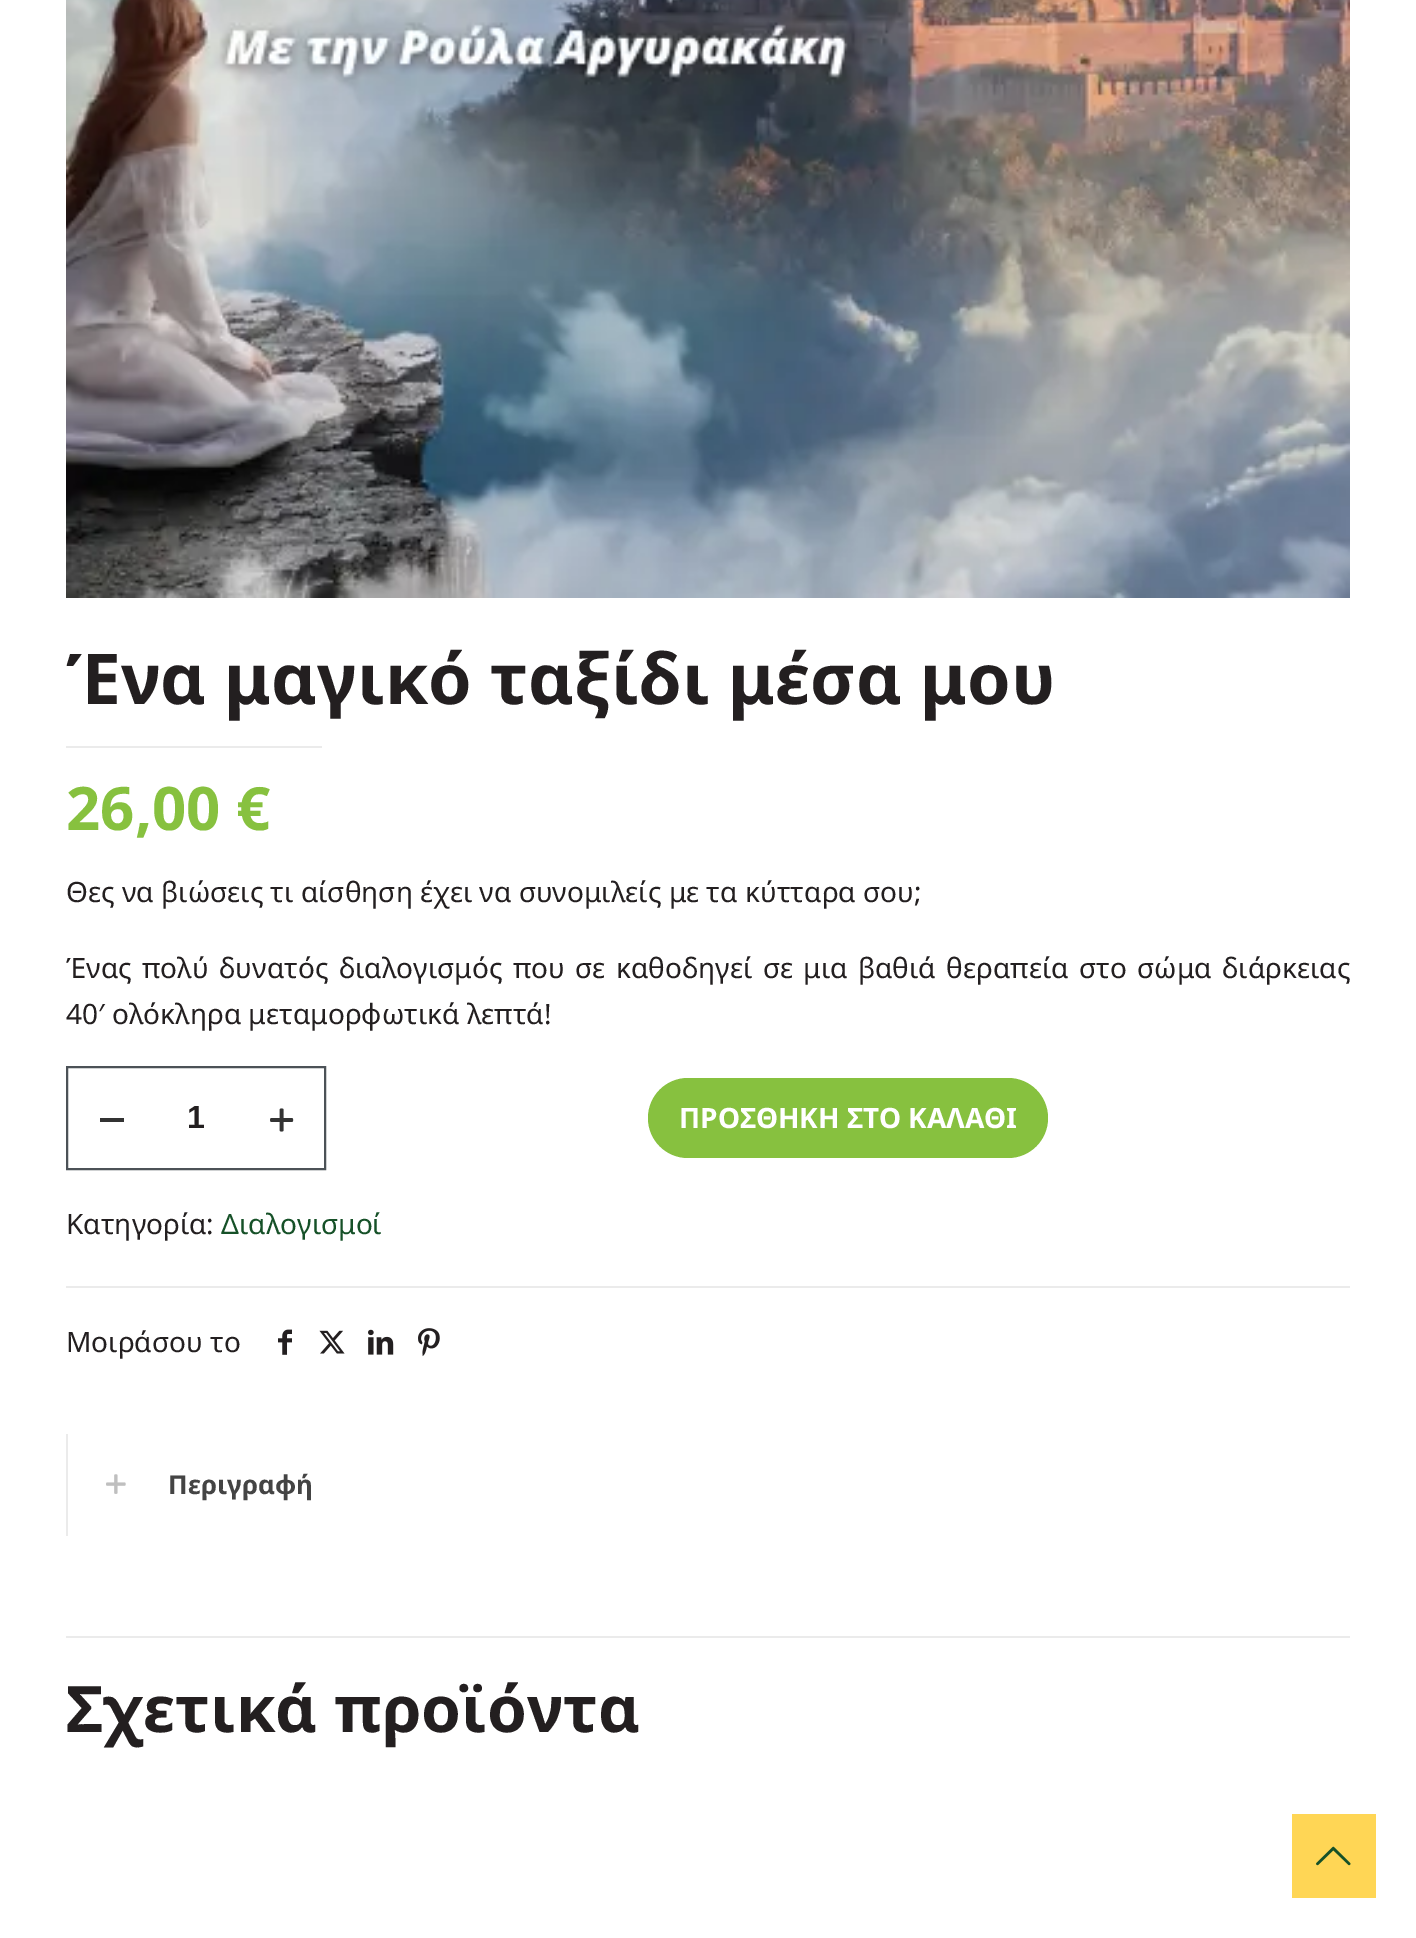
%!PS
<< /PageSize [1416 1938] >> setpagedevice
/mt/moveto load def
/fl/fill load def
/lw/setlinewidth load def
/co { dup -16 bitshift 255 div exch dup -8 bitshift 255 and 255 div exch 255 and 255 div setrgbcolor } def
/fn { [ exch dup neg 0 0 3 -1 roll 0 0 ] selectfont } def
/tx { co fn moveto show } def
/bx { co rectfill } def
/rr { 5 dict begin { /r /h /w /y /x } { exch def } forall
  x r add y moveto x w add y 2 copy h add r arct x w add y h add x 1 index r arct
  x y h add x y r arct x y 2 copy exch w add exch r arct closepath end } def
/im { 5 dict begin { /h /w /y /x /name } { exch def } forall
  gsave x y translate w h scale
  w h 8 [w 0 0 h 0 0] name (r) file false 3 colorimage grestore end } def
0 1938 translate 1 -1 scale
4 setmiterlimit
0 0 1416 1938 16#FFFFFF bx
(media/1.raw) 66 0 1284 598 im
66 746 256 2 16#EBEBEB bx
16#4C5257 co
2 lw
67 1067 258 102 rectstroke
100 1118 24 4 16#333333 bx
(media/2.raw) 270 1108 24 24 im
16#87C13F co
648 1078 400 80 40 rr fl
66 1286 1284 2 16#EBEBEB bx
(media/3.raw) 278 1329 14 26 im
(media/4.raw) 319 1330 26 24 im
(media/5.raw) 368 1329 26 26 im
(media/6.raw) 418 1328 22 29 im
66 1434 2 102 16#EBEBEB bx
(media/7.raw) 106 1474 20 20 im
66 1636 1284 2 16#EBEBEB bx
1292 1814 84 84 16#FFD655 bx
(media/8.raw) 1316 1846 35 20 im
(Ένα μαγικό ταξίδι μέσα μου) 66 704 /NotoSans-Bold 70 16#231F20 tx
(26,00 €) 66 830 /NotoSans-Bold 60 16#87C13F tx
(Θες να βιώσεις τι αίσθηση έχει να συνομιλείς με τα κύτταρα σου;) 66 902 /NotoSans-Regular 28 16#231F20 tx
66 978 mt 3.1 0 32 (Ένας πολύ δυνατός διαλογισμός που σε καθοδηγεί σε μια βαθιά θεραπεία στο σώμα διάρκειας) widthshow
(40′ ολόκληρα μεταμορφωτικά λεπτά!) 66 1024 /NotoSans-Regular 28 16#231F20 tx
(1) 187 1128 /LiberationSans-Bold 32 16#231F20 tx
(ΠΡΟΣΘΗΚΗ ΣΤΟ ΚΑΛΑΘΙ) 679 1128 /NotoSans-Bold 28 16#FFFFFF tx
(Κατηγορία:) 66 1234 /NotoSans-Regular 28 16#231F20 tx
(Διαλογισμοί) 221 1234 /NotoSans-Regular 28 16#165128 tx
(Μοιράσου το) 66 1352 /NotoSans-Regular 28 16#231F20 tx
(Περιγραφή) 168 1494 /NotoSans-Bold 26 16#444444 tx
(Σχετικά προϊόντα) 66 1732 /NotoSans-Bold 64 16#231F20 tx
showpage
